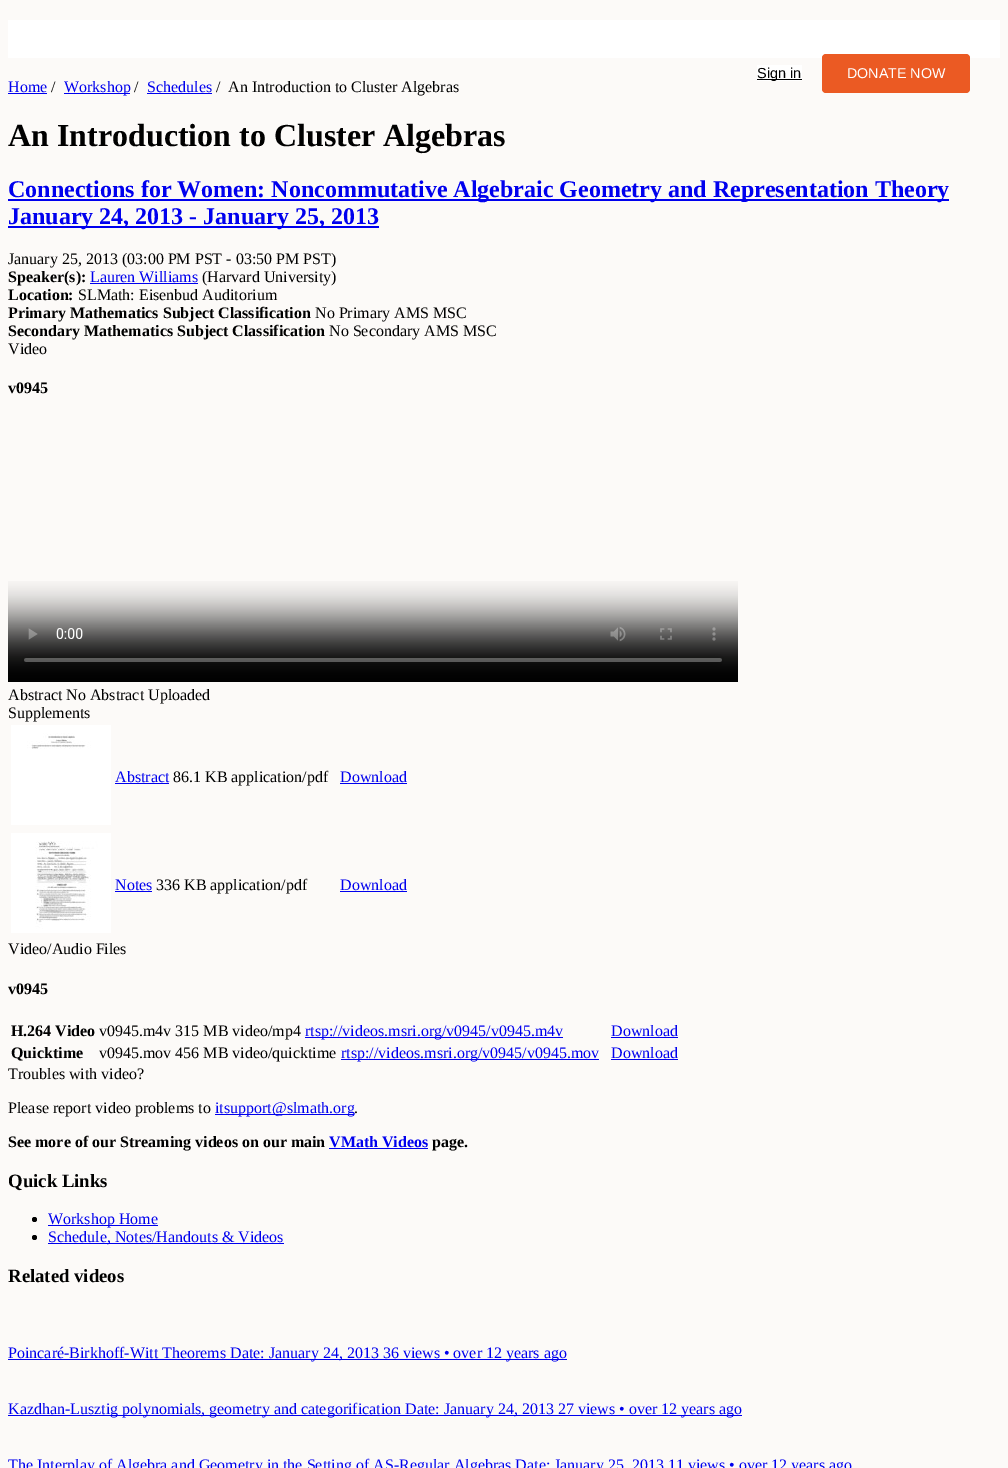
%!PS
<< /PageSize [1008 1468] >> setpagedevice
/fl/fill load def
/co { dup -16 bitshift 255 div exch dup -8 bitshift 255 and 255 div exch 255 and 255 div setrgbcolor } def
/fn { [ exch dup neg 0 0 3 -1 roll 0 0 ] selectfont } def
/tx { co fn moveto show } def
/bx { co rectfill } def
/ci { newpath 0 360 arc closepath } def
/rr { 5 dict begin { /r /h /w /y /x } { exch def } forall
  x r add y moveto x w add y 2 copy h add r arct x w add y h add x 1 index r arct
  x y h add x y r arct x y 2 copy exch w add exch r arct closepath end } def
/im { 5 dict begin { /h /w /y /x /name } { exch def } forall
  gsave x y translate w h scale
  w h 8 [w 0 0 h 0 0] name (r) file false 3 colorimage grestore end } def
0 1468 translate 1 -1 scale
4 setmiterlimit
0 0 1008 1468 16#FCFAF8 bx
8 20 992 38 16#FFFFFF bx
757 65 45 16 16#FFFFFF bx
757 79 45 1 16#000000 bx
16#EB5A23 co
822 54 148 39 4 rr fl
8 93 39 1 16#0000EE bx
64 93 66 1 16#0000EE bx
147 93 65 1 16#0000EE bx
8 199 941 2 16#0000EE bx
8 226 371 2 16#0000EE bx
90 283 108 1 16#0000EE bx
(media/1.raw) 8 581 730 101 im
(media/2.raw) 11 725 100 100 im
115 783 54 1 16#0000EE bx
340 783 67 1 16#0000EE bx
(media/3.raw) 11 833 100 100 im
115 891 37 1 16#0000EE bx
340 891 67 1 16#0000EE bx
305 1037 258 1 16#0000EE bx
611 1037 67 1 16#0000EE bx
341 1059 258 1 16#0000EE bx
611 1059 67 1 16#0000EE bx
215 1114 139 1 16#0000EE bx
329 1148 99 1 16#0000EE bx
16#000000 co
34.5 1219.5 2.5 ci fl
48 1225 110 1 16#0000EE bx
16#000000 co
34.5 1237.5 2.5 ci fl
48 1243 236 1 16#0000EE bx
8 1359 559 1 16#0000EE bx
8 1415 734 1 16#0000EE bx
(Sign in) 757 78 /LiberationSans-Regular 14.5 16#000000 tx
(DONATE NOW) 847 78 /LiberationSans-Regular 14.25 16#FFFFFF tx
(Home) 8 92 /LiberationSerif-Regular 16 16#0000EE tx
(/) 51 92 /LiberationSerif-Regular 16 16#000000 tx
(Workshop) 64 92 /LiberationSerif-Regular 16 16#0000EE tx
(/) 134 92 /LiberationSerif-Regular 16 16#000000 tx
(Schedules) 147 92 /LiberationSerif-Regular 16 16#0000EE tx
(/) 216 92 /LiberationSerif-Regular 16 16#000000 tx
(An Introduction to Cluster Algebras) 228 92 /LiberationSerif-Regular 16 16#000000 tx
(An Introduction to Cluster Algebras) 8 146 /LiberationSerif-Bold 32 16#000000 tx
(Connections for Women: Noncommutative Algebraic Geometry and Representation Theory) 8 197 /LiberationSerif-Bold 24 16#0000EE tx
(January 24, 2013 - January 25, 2013) 8 224 /LiberationSerif-Bold 24 16#0000EE tx
(January 25, 2013 \(03:00 PM PST - 03:50 PM PST\)) 8 264 /LiberationSerif-Regular 16 16#000000 tx
(Speaker\(s\):) 8 282 /LiberationSerif-Bold 16 16#000000 tx
(Lauren Williams) 90 282 /LiberationSerif-Regular 16 16#0000EE tx
(\(Harvard University\)) 202 282 /LiberationSerif-Regular 16 16#000000 tx
(Location:) 8 300 /LiberationSerif-Bold 16 16#000000 tx
(SLMath: Eisenbud Auditorium) 78 300 /LiberationSerif-Regular 16 16#000000 tx
(Primary Mathematics Subject Classification) 8 318 /LiberationSerif-Bold 16 16#000000 tx
(No Primary AMS MSC) 315 318 /LiberationSerif-Regular 16 16#000000 tx
(Secondary Mathematics Subject Classification) 8 336 /LiberationSerif-Bold 16 16#000000 tx
(No Secondary AMS MSC) 329 336 /LiberationSerif-Regular 16 16#000000 tx
(Video) 8 354 /LiberationSerif-Regular 16 16#000000 tx
(v0945) 8 393 /LiberationSerif-Bold 16 16#000000 tx
(Abstract No Abstract Uploaded) 8 700 /LiberationSerif-Regular 16 16#000000 tx
(Supplements) 8 718 /LiberationSerif-Regular 16 16#000000 tx
(Abstract) 115 782 /LiberationSerif-Regular 16 16#0000EE tx
(86.1 KB application/pdf) 173 782 /LiberationSerif-Regular 16 16#000000 tx
(Download) 340 782 /LiberationSerif-Regular 16 16#0000EE tx
(Notes) 115 890 /LiberationSerif-Regular 16 16#0000EE tx
(336 KB application/pdf) 156 890 /LiberationSerif-Regular 16 16#000000 tx
(Download) 340 890 /LiberationSerif-Regular 16 16#0000EE tx
(Video/Audio Files) 8 954 /LiberationSerif-Regular 16 16#000000 tx
(v0945) 8 994 /LiberationSerif-Bold 16 16#000000 tx
(H.264 Video) 11 1036 /LiberationSerif-Bold 16 16#000000 tx
(v0945.m4v 315 MB video/mp4) 99 1036 /LiberationSerif-Regular 16 16#000000 tx
(rtsp://videos.msri.org/v0945/v0945.m4v) 305 1036 /LiberationSerif-Regular 16 16#0000EE tx
(Download) 611 1036 /LiberationSerif-Regular 16 16#0000EE tx
(Quicktime) 11 1058 /LiberationSerif-Bold 16 16#000000 tx
(v0945.mov 456 MB video/quicktime) 99 1058 /LiberationSerif-Regular 16 16#000000 tx
(rtsp://videos.msri.org/v0945/v0945.mov) 341 1058 /LiberationSerif-Regular 16 16#0000EE tx
(Download) 611 1058 /LiberationSerif-Regular 16 16#0000EE tx
(Troubles with video?) 8 1079 /LiberationSerif-Regular 16 16#000000 tx
(Please report video problems to) 8 1113 /LiberationSerif-Regular 16 16#000000 tx
(itsupport@slmath.org) 215 1113 /LiberationSerif-Regular 16 16#0000EE tx
(.) 354 1113 /LiberationSerif-Regular 16 16#000000 tx
(See more of our Streaming videos on our main) 8 1147 /LiberationSerif-Bold 16 16#000000 tx
(VMath Videos) 329 1147 /LiberationSerif-Bold 16 16#0000EE tx
(page.) 432 1147 /LiberationSerif-Bold 16 16#000000 tx
(Quick Links) 8 1187 /LiberationSerif-Bold 18.75 16#000000 tx
(Workshop Home) 48 1224 /LiberationSerif-Regular 16 16#0000EE tx
(Schedule, Notes/Handouts & Videos) 48 1242 /LiberationSerif-Regular 16 16#0000EE tx
(Related videos) 8 1282 /LiberationSerif-Bold 18.75 16#000000 tx
(Poincaré-Birkhoff-Witt Theorems Date: January 24, 2013 36 views • over 12 years ago) 8 1358 /LiberationSerif-Regular 16 16#0000EE tx
(Kazdhan-Lusztig polynomials, geometry and categorification Date: January 24, 2013 27 views • over 12 years ago) 8 1414 /LiberationSerif-Regular 16 16#0000EE tx
(The Interplay of Algebra and Geometry in the Setting of AS-Regular Algebras Date: January 25, 2013 11 views • over 12 years ago) 8 1470 /LiberationSerif-Regular 16 16#0000EE tx
showpage
